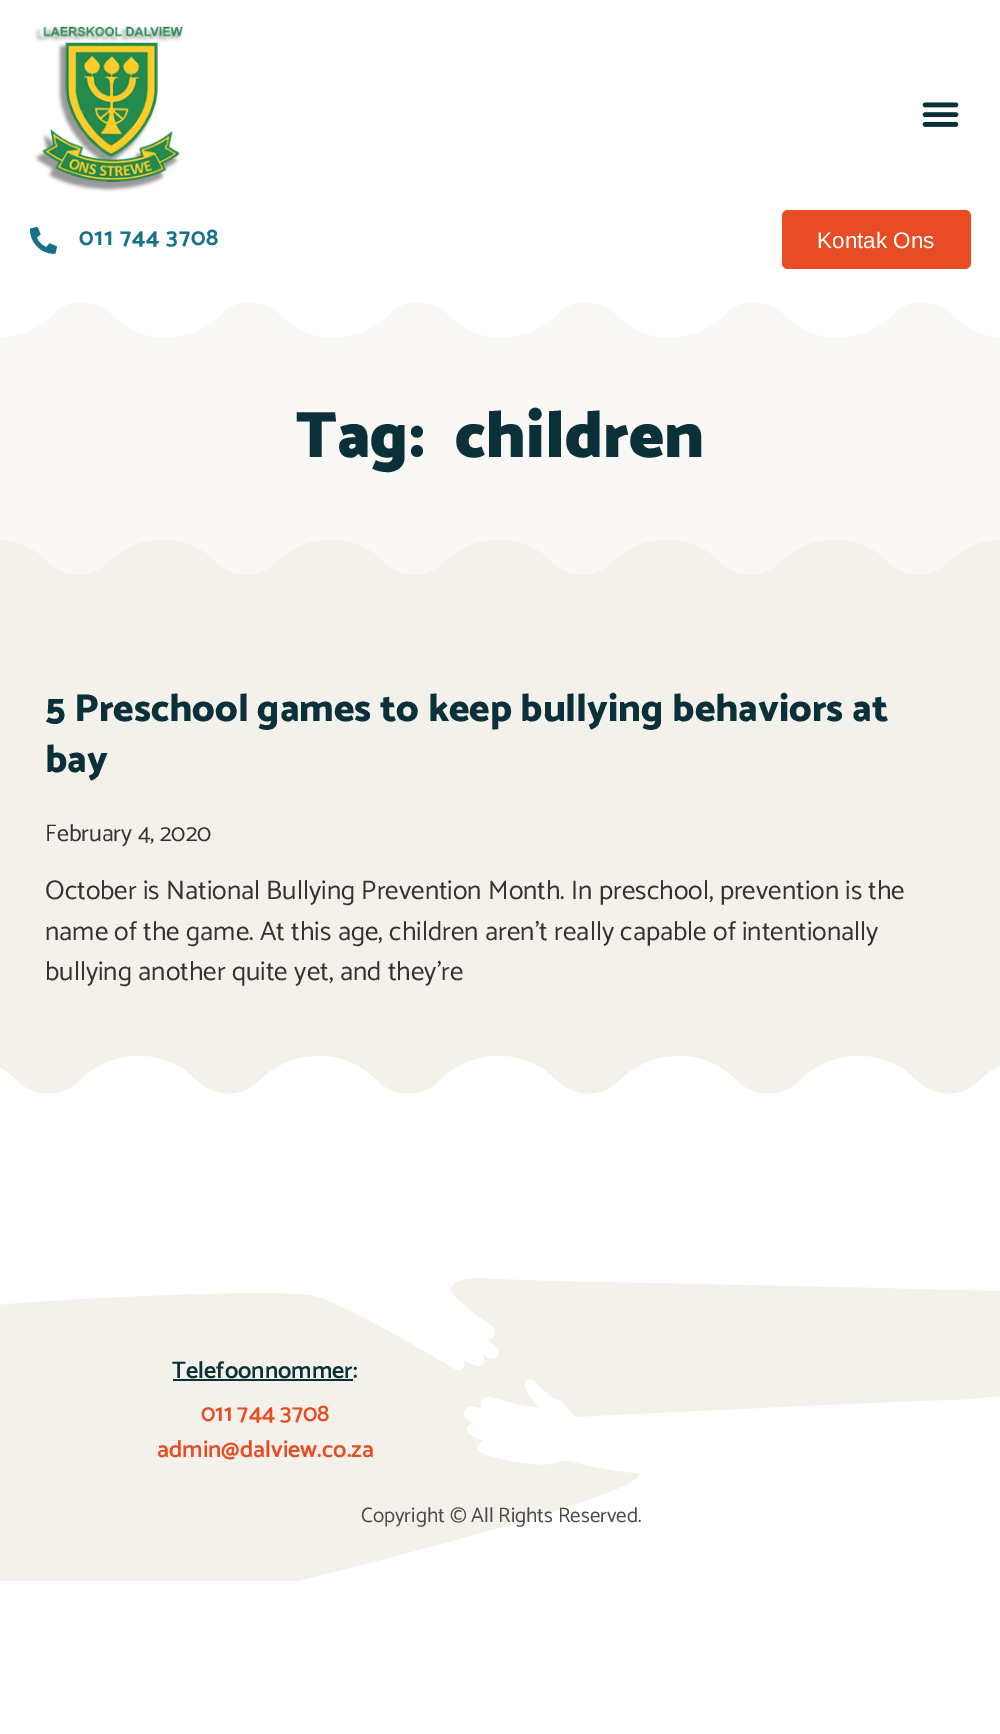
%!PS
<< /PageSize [1000 1734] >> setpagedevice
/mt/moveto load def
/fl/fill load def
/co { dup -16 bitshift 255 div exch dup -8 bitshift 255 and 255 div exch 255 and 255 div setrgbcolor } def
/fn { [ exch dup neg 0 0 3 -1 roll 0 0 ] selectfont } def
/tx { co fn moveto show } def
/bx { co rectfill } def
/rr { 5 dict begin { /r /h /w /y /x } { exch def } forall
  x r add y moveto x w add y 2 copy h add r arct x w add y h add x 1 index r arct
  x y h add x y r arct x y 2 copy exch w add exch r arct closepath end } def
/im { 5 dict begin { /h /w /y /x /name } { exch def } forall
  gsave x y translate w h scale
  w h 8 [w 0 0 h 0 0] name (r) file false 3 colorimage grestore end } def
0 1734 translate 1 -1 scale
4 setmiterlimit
0 0 1000 1734 16#FFFFFF bx
(media/1.raw) 34 26 149 166 im
(media/2.raw) 922 102 37 25 im
(media/3.raw) 30 226 27 28 im
16#E74C25 co
782 210 189 59 6 rr fl
0 302 1000 273 16#F9F8F4 bx
(media/4.raw) 0 297 1000 41 im
(media/5.raw) 0 540 1000 41 im
0 581 1000 513 16#F4F1EA bx
(media/6.raw) 0 1055 1000 43 im
0 1278 1000 303 16#F4F1EA bx
(media/7.raw) 0 1278 1000 303 im
173 1379 180 2 16#0A303A bx
/Catamaran-Bold 24 fn
16#167287 co
79 245 mt .75 0 (011 744 3708) ashow
(Kontak Ons) 817 248 /LiberationSans-Regular 22.5 16#FFFFFF tx
(Tag:) 296 457 /Catamaran-Black 66 16#0A303A tx
(children) 455 457 /Catamaran-Black 66 16#0A303A tx
(5 Preschool games to keep bullying behaviors at) 45 721 /Catamaran-ExtraBold 39 16#0A303A tx
(bay) 45 772 /Catamaran-ExtraBold 39 16#0A303A tx
(February 4, 2020) 45 841 /Catamaran-Regular 24 16#333333 tx
(October is National Bullying Prevention Month. In preschool, prevention is the) 45 899 /Catamaran-Regular 27 16#333333 tx
(name of the game. At this age, children aren’t really capable of intentionally) 45 940 /Catamaran-Regular 27 16#333333 tx
(bullying another quite yet, and they’re) 45 980 /Catamaran-Regular 27 16#333333 tx
(Telefoonnommer:) 172 1378 /Catamaran-SemiBold 24 16#0A303A tx
(011 744 3708) 201 1421 /Catamaran-SemiBold 24 16#E74C25 tx
(admin@dalview.co.za) 157 1457 /Catamaran-SemiBold 24 16#E74C25 tx
(Copyright © All Rights Reserved.) 361 1522 /Catamaran-Regular 21 16#4A4A4A tx
showpage
